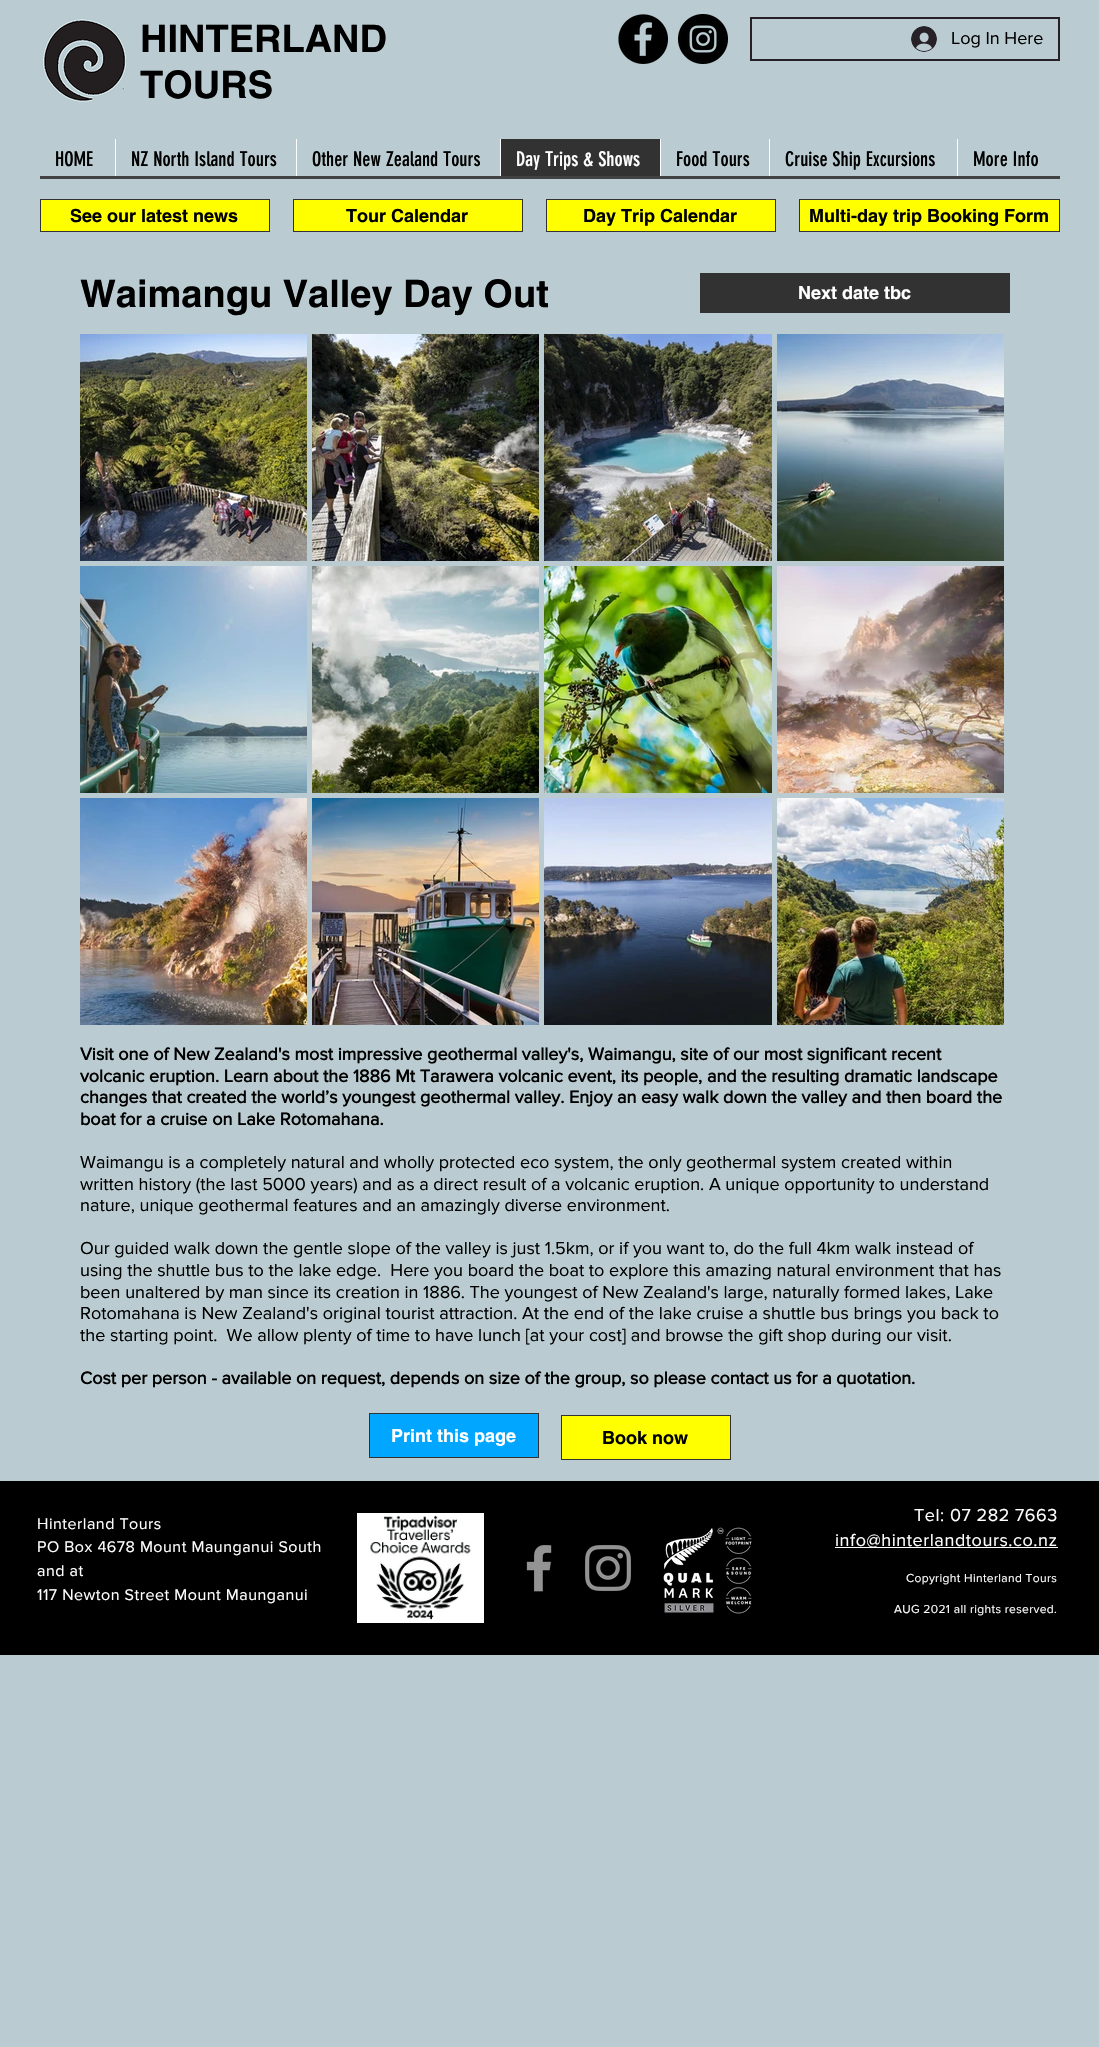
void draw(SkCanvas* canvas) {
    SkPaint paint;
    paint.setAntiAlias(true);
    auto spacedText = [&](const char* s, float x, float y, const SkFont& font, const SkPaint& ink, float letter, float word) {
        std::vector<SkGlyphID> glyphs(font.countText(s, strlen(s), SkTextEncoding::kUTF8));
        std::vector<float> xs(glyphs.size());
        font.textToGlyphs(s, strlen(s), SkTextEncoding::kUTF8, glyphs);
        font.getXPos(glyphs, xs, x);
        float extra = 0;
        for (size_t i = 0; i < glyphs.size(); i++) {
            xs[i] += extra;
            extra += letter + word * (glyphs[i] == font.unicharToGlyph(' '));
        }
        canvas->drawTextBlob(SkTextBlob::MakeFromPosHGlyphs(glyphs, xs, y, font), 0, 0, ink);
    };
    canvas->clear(0xFFBACCD1);
    canvas->drawImageRect(SkImages::DeferredFromEncodedData(SkData::MakeFromFileName("img1.png")), SkRect::MakeXYWH(42, 18, 84, 84), SkSamplingOptions());
    SkFont font1(fontMgr->matchFamilyStyle("helvetica", SkFontStyle::Bold()), 38);
    font1.setSubpixel(true);
    paint.setColor(0xFF000000);
    canvas->drawString("HINTERLAND", 140, 52, font1, paint);
    canvas->drawString("TOURS", 140, 98, font1, paint);
    canvas->drawImageRect(SkImages::DeferredFromEncodedData(SkData::MakeFromFileName("img2.png")), SkRect::MakeXYWH(618, 14, 50, 50), SkSamplingOptions());
    canvas->drawImageRect(SkImages::DeferredFromEncodedData(SkData::MakeFromFileName("img3.png")), SkRect::MakeXYWH(678, 14, 50, 50), SkSamplingOptions());
    paint.setStyle(SkPaint::kStroke_Style);
    paint.setStrokeWidth(2);
    paint.setColor(0xFF262027);
    canvas->drawRect(SkRect::MakeXYWH(751, 18, 308, 42), paint);
    canvas->drawImageRect(SkImages::DeferredFromEncodedData(SkData::MakeFromFileName("img4.png")), SkRect::MakeXYWH(911, 26, 26, 26), SkSamplingOptions());
    SkFont font2(fontMgr->matchFamilyStyle("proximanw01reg", SkFontStyle::Normal()), 18);
    font2.setSubpixel(true);
    paint.setStyle(SkPaint::kFill_Style);
    paint.setColor(0xFF000000);
    canvas->drawString("Log In Here", 951, 44, font2, paint);
    SkFont font3(fontMgr->matchFamilyStyle("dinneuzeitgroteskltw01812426", SkFontStyle::Normal()), 20);
    font3.setSubpixel(true);
    canvas->drawString("HOME", 55, 166, font3, paint);
    paint.setColor(0xFFFFFFFF);
    canvas->drawRect(SkRect::MakeXYWH(115, 139, 1, 40), paint);
    paint.setColor(0xFF000000);
    canvas->drawString("NZ North Island Tours", 131, 166, font3, paint);
    paint.setColor(0xFFFFFFFF);
    canvas->drawRect(SkRect::MakeXYWH(296, 139, 1, 40), paint);
    paint.setColor(0xFF000000);
    canvas->drawString("Other New Zealand Tours", 312, 166, font3, paint);
    paint.setColor(0xFF323232);
    canvas->drawRect(SkRect::MakeXYWH(501, 139, 159, 37), paint);
    paint.setColor(0xFFFFFFFF);
    canvas->drawRect(SkRect::MakeXYWH(500, 139, 1, 40), paint);
    canvas->drawString("Day Trips & Shows", 516, 166, font3, paint);
    canvas->drawRect(SkRect::MakeXYWH(660, 139, 1, 40), paint);
    paint.setColor(0xFF000000);
    canvas->drawString("Food Tours", 676, 166, font3, paint);
    paint.setColor(0xFFFFFFFF);
    canvas->drawRect(SkRect::MakeXYWH(769, 139, 1, 40), paint);
    paint.setColor(0xFF000000);
    canvas->drawString("Cruise Ship Excursions", 785, 166, font3, paint);
    paint.setColor(0xFFFFFFFF);
    canvas->drawRect(SkRect::MakeXYWH(957, 139, 1, 40), paint);
    paint.setColor(0xFF000000);
    canvas->drawString("More Info", 973, 166, font3, paint);
    paint.setColor(0xFF424242);
    canvas->drawRect(SkRect::MakeXYWH(40, 176, 1020, 3), paint);
    paint.setColor(0xFFFFFF00);
    canvas->drawRect(SkRect::MakeXYWH(40.5f, 199.5f, 229, 32), paint);
    paint.setStyle(SkPaint::kStroke_Style);
    paint.setStrokeWidth(1);
    paint.setColor(0xFF323232);
    canvas->drawRect(SkRect::MakeXYWH(40.5f, 199.5f, 229, 32), paint);
    SkFont font4(fontMgr->matchFamilyStyle("helvetica", SkFontStyle::Bold()), 18);
    font4.setSubpixel(true);
    paint.setStyle(SkPaint::kFill_Style);
    paint.setColor(0xFF000000);
    canvas->drawString("See our latest news", 70, 222, font4, paint);
    paint.setColor(0xFFFFFF00);
    canvas->drawRect(SkRect::MakeXYWH(293.5f, 199.5f, 229, 32), paint);
    paint.setStyle(SkPaint::kStroke_Style);
    paint.setColor(0xFF323232);
    canvas->drawRect(SkRect::MakeXYWH(293.5f, 199.5f, 229, 32), paint);
    paint.setStyle(SkPaint::kFill_Style);
    paint.setColor(0xFF000000);
    canvas->drawString("Tour Calendar", 346, 222, font4, paint);
    paint.setColor(0xFFFFFF00);
    canvas->drawRect(SkRect::MakeXYWH(546.5f, 199.5f, 229, 32), paint);
    paint.setStyle(SkPaint::kStroke_Style);
    paint.setColor(0xFF323232);
    canvas->drawRect(SkRect::MakeXYWH(546.5f, 199.5f, 229, 32), paint);
    paint.setStyle(SkPaint::kFill_Style);
    paint.setColor(0xFF000000);
    canvas->drawString("Day Trip Calendar", 583, 222, font4, paint);
    paint.setColor(0xFFFFFF00);
    canvas->drawRect(SkRect::MakeXYWH(799.5f, 199.5f, 260, 32), paint);
    paint.setStyle(SkPaint::kStroke_Style);
    paint.setColor(0xFF323232);
    canvas->drawRect(SkRect::MakeXYWH(799.5f, 199.5f, 260, 32), paint);
    paint.setStyle(SkPaint::kFill_Style);
    paint.setColor(0xFF000000);
    canvas->drawString("Multi-day trip Booking Form", 809, 222, font4, paint);
    canvas->drawString("Waimangu Valley Day Out", 80, 307, font1, paint);
    paint.setColor(0xFF323232);
    canvas->drawRect(SkRect::MakeXYWH(700, 273, 310, 40), paint);
    paint.setColor(0xFFFFFFFF);
    canvas->drawString("Next date tbc", 798, 299, font4, paint);
    canvas->drawImageRect(SkImages::DeferredFromEncodedData(SkData::MakeFromFileName("img5.png")), SkRect::MakeXYWH(80, 334, 227, 227), SkSamplingOptions());
    canvas->drawImageRect(SkImages::DeferredFromEncodedData(SkData::MakeFromFileName("img6.png")), SkRect::MakeXYWH(312, 334, 227, 227), SkSamplingOptions());
    canvas->drawImageRect(SkImages::DeferredFromEncodedData(SkData::MakeFromFileName("img7.png")), SkRect::MakeXYWH(544, 334, 228, 227), SkSamplingOptions());
    canvas->drawImageRect(SkImages::DeferredFromEncodedData(SkData::MakeFromFileName("img8.png")), SkRect::MakeXYWH(777, 334, 227, 227), SkSamplingOptions());
    canvas->drawImageRect(SkImages::DeferredFromEncodedData(SkData::MakeFromFileName("img9.png")), SkRect::MakeXYWH(80, 566, 227, 227), SkSamplingOptions());
    canvas->drawImageRect(SkImages::DeferredFromEncodedData(SkData::MakeFromFileName("img10.png")), SkRect::MakeXYWH(312, 566, 227, 227), SkSamplingOptions());
    canvas->drawImageRect(SkImages::DeferredFromEncodedData(SkData::MakeFromFileName("img11.png")), SkRect::MakeXYWH(544, 566, 228, 227), SkSamplingOptions());
    canvas->drawImageRect(SkImages::DeferredFromEncodedData(SkData::MakeFromFileName("img12.png")), SkRect::MakeXYWH(777, 566, 227, 227), SkSamplingOptions());
    canvas->drawImageRect(SkImages::DeferredFromEncodedData(SkData::MakeFromFileName("img13.png")), SkRect::MakeXYWH(80, 798, 227, 227), SkSamplingOptions());
    canvas->drawImageRect(SkImages::DeferredFromEncodedData(SkData::MakeFromFileName("img14.png")), SkRect::MakeXYWH(312, 798, 227, 227), SkSamplingOptions());
    canvas->drawImageRect(SkImages::DeferredFromEncodedData(SkData::MakeFromFileName("img15.png")), SkRect::MakeXYWH(544, 798, 228, 227), SkSamplingOptions());
    canvas->drawImageRect(SkImages::DeferredFromEncodedData(SkData::MakeFromFileName("img16.png")), SkRect::MakeXYWH(777, 798, 227, 227), SkSamplingOptions());
    SkFont font5(fontMgr->matchFamilyStyle("proximanw01reg", SkFontStyle::Bold()), 18);
    font5.setSubpixel(true);
    paint.setColor(0xFF000000);
    canvas->drawString("Visit one of New Zealand's most impressive geothermal valley's, Waimangu, site of our most significant recent", 80, 1060, font5, paint);
    canvas->drawString("volcanic eruption. Learn about the 1886 Mt Tarawera volcanic event, its people, and the resulting dramatic landscape", 80, 1082, font5, paint);
    canvas->drawString("changes that created the world’s youngest geothermal valley. Enjoy an easy walk down the valley and then board the", 80, 1103, font5, paint);
    canvas->drawString("boat for a cruise on Lake Rotomahana.", 80, 1125, font5, paint);
    canvas->drawString("Waimangu is a completely natural and wholly protected eco system, the only geothermal system created within", 80, 1168, font2, paint);
    canvas->drawString("written history (the last 5000 years) and as a direct result of a volcanic eruption. A unique opportunity to understand", 80, 1190, font2, paint);
    canvas->drawString("nature, unique geothermal features and an amazingly diverse environment.", 80, 1211, font2, paint);
    canvas->drawString("Our guided walk down the gentle slope of the valley is just 1.5km, or if you want to, do the full 4km walk instead of", 80, 1254, font2, paint);
    canvas->drawString("using the shuttle bus to the lake edge.  Here you board the boat to explore this amazing natural environment that has", 80, 1276, font2, paint);
    canvas->drawString("been unaltered by man since its creation in 1886. The youngest of New Zealand's large, naturally formed lakes, Lake", 80, 1298, font2, paint);
    canvas->drawString("Rotomahana is New Zealand's original tourist attraction. At the end of the lake cruise a shuttle bus brings you back to", 80, 1319, font2, paint);
    canvas->drawString("the starting point.  We allow plenty of time to have lunch [at your cost] and browse the gift shop during our visit.", 80, 1341, font2, paint);
    canvas->drawString("Cost per person - available on request, depends on size of the group, so please contact us for a quotation.", 80, 1384, font5, paint);
    paint.setColor(0xFF00A6FF);
    canvas->drawRect(SkRect::MakeXYWH(369.5f, 1413.5f, 169, 44), paint);
    paint.setStyle(SkPaint::kStroke_Style);
    paint.setColor(0xFF323232);
    canvas->drawRect(SkRect::MakeXYWH(369.5f, 1413.5f, 169, 44), paint);
    paint.setStyle(SkPaint::kFill_Style);
    paint.setColor(0xFFFFFFFF);
    canvas->drawString("Print this page", 391, 1442, font4, paint);
    paint.setColor(0xFFFFFF00);
    canvas->drawRect(SkRect::MakeXYWH(561.5f, 1415.5f, 169, 44), paint);
    paint.setStyle(SkPaint::kStroke_Style);
    paint.setColor(0xFF323232);
    canvas->drawRect(SkRect::MakeXYWH(561.5f, 1415.5f, 169, 44), paint);
    paint.setStyle(SkPaint::kFill_Style);
    paint.setColor(0xFF000000);
    canvas->drawString("Book now", 602, 1444, font4, paint);
    canvas->drawRect(SkRect::MakeXYWH(0, 1481, 1099, 174), paint);
    SkFont font6(fontMgr->matchFamilyStyle("proximanw01reg", SkFontStyle::Normal()), 16);
    font6.setSubpixel(true);
    paint.setColor(0xFFFFFFFF);
    spacedText("Hinterland Tours", 37, 1529, font6, paint, 0.5f, 0);
    spacedText("PO Box 4678 Mount Maunganui South", 37, 1552, font6, paint, 0.5f, 0);
    spacedText("and at", 37, 1576, font6, paint, 0.5f, 0);
    spacedText("117 Newton Street Mount Maunganui", 37, 1600, font6, paint, 0.5f, 0);
    canvas->drawImageRect(SkImages::DeferredFromEncodedData(SkData::MakeFromFileName("img17.png")), SkRect::MakeXYWH(357, 1513, 127, 110), SkSamplingOptions());
    canvas->drawImageRect(SkImages::DeferredFromEncodedData(SkData::MakeFromFileName("img18.png")), SkRect::MakeXYWH(526, 1544, 26, 48), SkSamplingOptions());
    canvas->drawImageRect(SkImages::DeferredFromEncodedData(SkData::MakeFromFileName("img19.png")), SkRect::MakeXYWH(584, 1544, 48, 48), SkSamplingOptions());
    canvas->drawImageRect(SkImages::DeferredFromEncodedData(SkData::MakeFromFileName("img20.png")), SkRect::MakeXYWH(663, 1527, 89, 87), SkSamplingOptions());
    spacedText("Tel: 07 282 7663", 914, 1521, font2, paint, 0.55f, 0);
    canvas->drawRect(SkRect::MakeXYWH(835, 1547, 223, 1), paint);
    spacedText("info@hinterlandtours.co.nz", 835, 1546, font2, paint, 0.55f, 0);
    SkFont font7(fontMgr->matchFamilyStyle("proximanw01reg", SkFontStyle::Normal()), 12);
    font7.setSubpixel(true);
    spacedText("Copyright Hinterland Tours", 906, 1582, font7, paint, 0.35f, 0);
    spacedText("AUG 2021 all rights reserved.", 894, 1613, font7, paint, 0.35f, 0);
}
